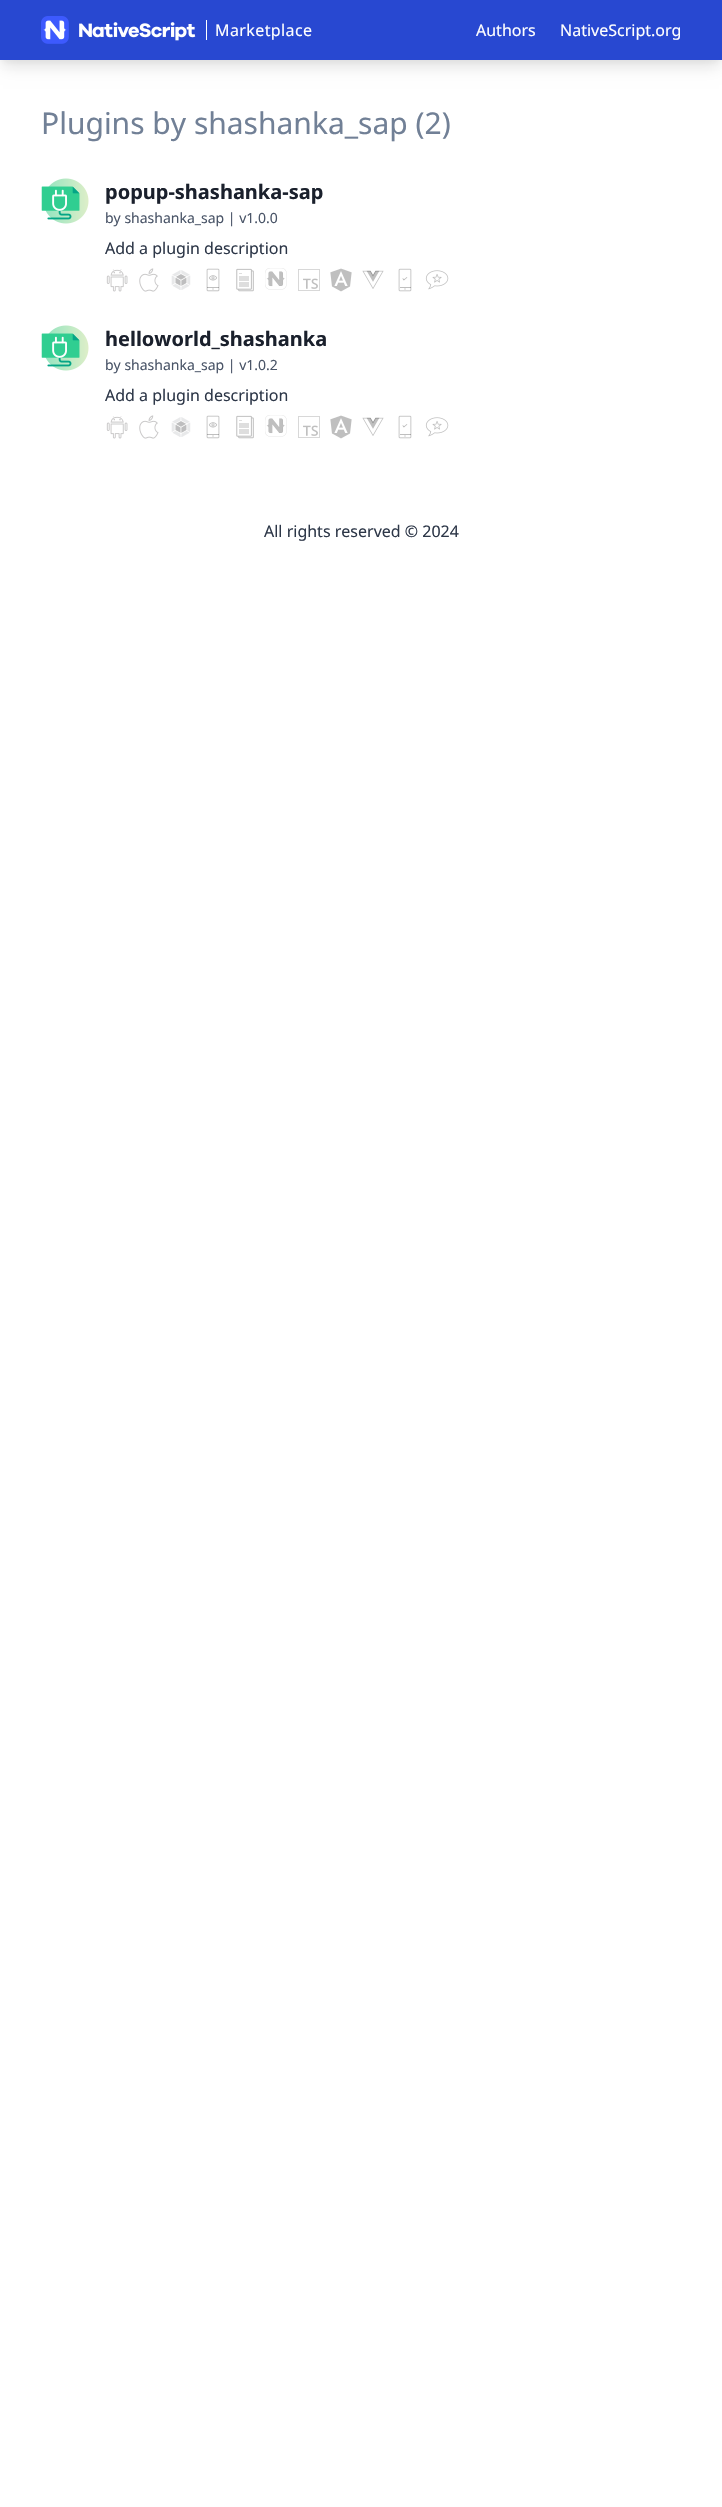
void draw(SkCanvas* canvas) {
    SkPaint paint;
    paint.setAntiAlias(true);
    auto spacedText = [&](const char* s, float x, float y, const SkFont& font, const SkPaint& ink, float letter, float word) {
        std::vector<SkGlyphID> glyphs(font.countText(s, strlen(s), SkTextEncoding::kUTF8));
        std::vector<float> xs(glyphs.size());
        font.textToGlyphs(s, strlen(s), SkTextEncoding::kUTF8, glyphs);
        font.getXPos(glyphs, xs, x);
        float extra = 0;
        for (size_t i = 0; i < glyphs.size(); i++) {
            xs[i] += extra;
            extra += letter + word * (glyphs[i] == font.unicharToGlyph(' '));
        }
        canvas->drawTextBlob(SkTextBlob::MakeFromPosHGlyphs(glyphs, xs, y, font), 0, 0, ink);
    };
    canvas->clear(0xFFFFFFFF);
    paint.setColor(0x0D000000);
    paint.setMaskFilter(SkMaskFilter::MakeBlur(kNormal_SkBlurStyle, 3));
    canvas->drawRect(SkRect::MakeXYWH(2, 6, 718, 56), paint);
    paint.setMaskFilter(nullptr);
    paint.setColor(0x1A000000);
    paint.setMaskFilter(SkMaskFilter::MakeBlur(kNormal_SkBlurStyle, 7.5f));
    canvas->drawRect(SkRect::MakeXYWH(3, 13, 716, 54), paint);
    paint.setMaskFilter(nullptr);
    paint.setColor(0xFF2848D1);
    canvas->drawRect(SkRect::MakeXYWH(0, 0, 722, 60), paint);
    canvas->drawImageRect(SkImages::DeferredFromEncodedData(SkData::MakeFromFileName("img1.png")), SkRect::MakeXYWH(41, 16, 28, 28), SkSamplingOptions());
    canvas->drawImageRect(SkImages::DeferredFromEncodedData(SkData::MakeFromFileName("img2.png")), SkRect::MakeXYWH(79, 22, 117, 19), SkSamplingOptions());
    paint.setColor(0xFFFFFFFF);
    canvas->drawRect(SkRect::MakeXYWH(206, 20, 1, 20), paint);
    SkFont font1(fontMgr->matchFamilyStyle("Noto Sans", SkFontStyle::Normal()), 16);
    font1.setSubpixel(true);
    spacedText("Marketplace", 215, 36, font1, paint, 0.4f, 0);
    canvas->drawString("Authors", 476, 36, font1, paint);
    canvas->drawString("NativeScript.org", 560, 36, font1, paint);
    SkFont font2(fontMgr->matchFamilyStyle("Noto Sans", SkFontStyle::Normal()), 30);
    font2.setSubpixel(true);
    paint.setColor(0xFF718096);
    canvas->drawString("Plugins by shashanka_sap (2)", 41, 134, font2, paint);
    canvas->drawImageRect(SkImages::DeferredFromEncodedData(SkData::MakeFromFileName("img3.png")), SkRect::MakeXYWH(41, 178, 48, 46), SkSamplingOptions());
    SkFont font3(fontMgr->matchFamilyStyle("Noto Sans", SkFontStyle::Bold()), 20);
    font3.setSubpixel(true);
    paint.setColor(0xFF1A202C);
    canvas->drawString("popup-shashanka-sap", 105, 199, font3, paint);
    SkFont font4(fontMgr->matchFamilyStyle("Noto Sans", SkFontStyle::Normal()), 14);
    font4.setSubpixel(true);
    paint.setColor(0xFF4A5568);
    canvas->drawString("by shashanka_sap | v1.0.0", 105, 223, font4, paint);
    paint.setColor(0xFF2D3748);
    canvas->drawString("Add a plugin description", 105, 254, font1, paint);
    canvas->drawImageRect(SkImages::DeferredFromEncodedData(SkData::MakeFromFileName("img4.png")), SkRect::MakeXYWH(106, 269, 22, 23), SkSamplingOptions());
    canvas->drawImageRect(SkImages::DeferredFromEncodedData(SkData::MakeFromFileName("img5.png")), SkRect::MakeXYWH(139, 268, 20, 24), SkSamplingOptions());
    canvas->drawImageRect(SkImages::DeferredFromEncodedData(SkData::MakeFromFileName("img6.png")), SkRect::MakeXYWH(171, 270, 20, 20), SkSamplingOptions());
    canvas->drawImageRect(SkImages::DeferredFromEncodedData(SkData::MakeFromFileName("img7.png")), SkRect::MakeXYWH(206, 268, 14, 24), SkSamplingOptions());
    canvas->drawImageRect(SkImages::DeferredFromEncodedData(SkData::MakeFromFileName("img8.png")), SkRect::MakeXYWH(236, 268, 18, 24), SkSamplingOptions());
    canvas->drawImageRect(SkImages::DeferredFromEncodedData(SkData::MakeFromFileName("img9.png")), SkRect::MakeXYWH(265, 268, 22, 22), SkSamplingOptions());
    canvas->drawImageRect(SkImages::DeferredFromEncodedData(SkData::MakeFromFileName("img10.png")), SkRect::MakeXYWH(298, 269, 22, 22), SkSamplingOptions());
    canvas->drawImageRect(SkImages::DeferredFromEncodedData(SkData::MakeFromFileName("img11.png")), SkRect::MakeXYWH(330, 268, 22, 24), SkSamplingOptions());
    canvas->drawImageRect(SkImages::DeferredFromEncodedData(SkData::MakeFromFileName("img12.png")), SkRect::MakeXYWH(362, 270, 22, 19), SkSamplingOptions());
    canvas->drawImageRect(SkImages::DeferredFromEncodedData(SkData::MakeFromFileName("img13.png")), SkRect::MakeXYWH(398, 268, 14, 24), SkSamplingOptions());
    canvas->drawImageRect(SkImages::DeferredFromEncodedData(SkData::MakeFromFileName("img14.png")), SkRect::MakeXYWH(425, 270, 24, 20), SkSamplingOptions());
    canvas->drawImageRect(SkImages::DeferredFromEncodedData(SkData::MakeFromFileName("img3.png")), SkRect::MakeXYWH(41, 325, 48, 46), SkSamplingOptions());
    paint.setColor(0xFF1A202C);
    canvas->drawString("helloworld_shashanka", 105, 346, font3, paint);
    paint.setColor(0xFF4A5568);
    canvas->drawString("by shashanka_sap | v1.0.2", 105, 370, font4, paint);
    paint.setColor(0xFF2D3748);
    canvas->drawString("Add a plugin description", 105, 401, font1, paint);
    canvas->drawImageRect(SkImages::DeferredFromEncodedData(SkData::MakeFromFileName("img4.png")), SkRect::MakeXYWH(106, 416, 22, 23), SkSamplingOptions());
    canvas->drawImageRect(SkImages::DeferredFromEncodedData(SkData::MakeFromFileName("img5.png")), SkRect::MakeXYWH(139, 415, 20, 24), SkSamplingOptions());
    canvas->drawImageRect(SkImages::DeferredFromEncodedData(SkData::MakeFromFileName("img6.png")), SkRect::MakeXYWH(171, 417, 20, 20), SkSamplingOptions());
    canvas->drawImageRect(SkImages::DeferredFromEncodedData(SkData::MakeFromFileName("img7.png")), SkRect::MakeXYWH(206, 415, 14, 24), SkSamplingOptions());
    canvas->drawImageRect(SkImages::DeferredFromEncodedData(SkData::MakeFromFileName("img8.png")), SkRect::MakeXYWH(236, 415, 18, 24), SkSamplingOptions());
    canvas->drawImageRect(SkImages::DeferredFromEncodedData(SkData::MakeFromFileName("img9.png")), SkRect::MakeXYWH(265, 415, 22, 22), SkSamplingOptions());
    canvas->drawImageRect(SkImages::DeferredFromEncodedData(SkData::MakeFromFileName("img10.png")), SkRect::MakeXYWH(298, 416, 22, 22), SkSamplingOptions());
    canvas->drawImageRect(SkImages::DeferredFromEncodedData(SkData::MakeFromFileName("img11.png")), SkRect::MakeXYWH(330, 415, 22, 24), SkSamplingOptions());
    canvas->drawImageRect(SkImages::DeferredFromEncodedData(SkData::MakeFromFileName("img12.png")), SkRect::MakeXYWH(362, 417, 22, 19), SkSamplingOptions());
    canvas->drawImageRect(SkImages::DeferredFromEncodedData(SkData::MakeFromFileName("img13.png")), SkRect::MakeXYWH(398, 415, 14, 24), SkSamplingOptions());
    canvas->drawImageRect(SkImages::DeferredFromEncodedData(SkData::MakeFromFileName("img14.png")), SkRect::MakeXYWH(425, 417, 24, 20), SkSamplingOptions());
    canvas->drawString("All rights reserved © 2024", 264, 537, font1, paint);
}
